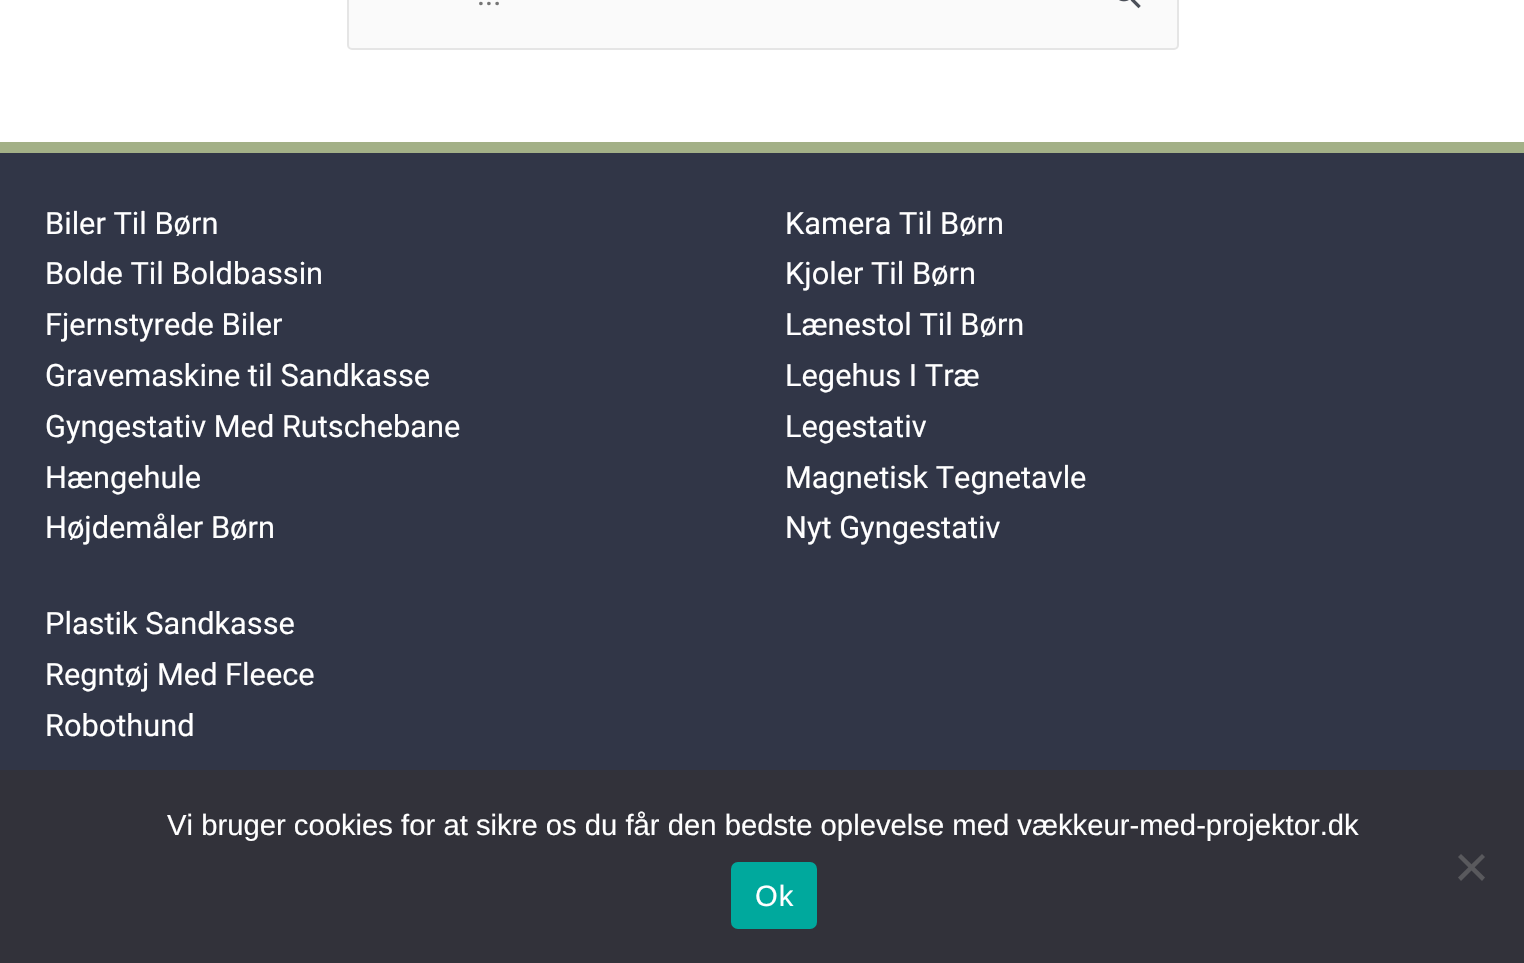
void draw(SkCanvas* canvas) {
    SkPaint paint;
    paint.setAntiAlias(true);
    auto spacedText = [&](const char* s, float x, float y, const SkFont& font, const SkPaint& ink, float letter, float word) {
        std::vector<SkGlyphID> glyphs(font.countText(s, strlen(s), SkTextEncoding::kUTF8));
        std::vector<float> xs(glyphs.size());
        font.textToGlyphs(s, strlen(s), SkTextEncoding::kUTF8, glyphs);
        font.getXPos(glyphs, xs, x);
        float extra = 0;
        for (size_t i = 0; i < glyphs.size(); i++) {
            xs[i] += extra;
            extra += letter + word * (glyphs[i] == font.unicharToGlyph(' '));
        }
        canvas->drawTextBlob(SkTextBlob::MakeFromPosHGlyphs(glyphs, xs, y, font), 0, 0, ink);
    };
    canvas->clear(0xFFFFFFFF);
    paint.setColor(0xFFFAFAFA);
    canvas->drawRoundRect(SkRect::MakeXYWH(348, -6, 830, 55), 4, 4, paint);
    paint.setStyle(SkPaint::kStroke_Style);
    paint.setStrokeWidth(2);
    paint.setColor(0xFFE5E5E5);
    canvas->drawRoundRect(SkRect::MakeXYWH(348, -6, 830, 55), 4, 4, paint);
    SkFont font1(fontMgr->matchFamilyStyle("Roboto", SkFontStyle::Normal()), 30.75f);
    font1.setSubpixel(true);
    paint.setStyle(SkPaint::kFill_Style);
    paint.setColor(0xFF757575);
    canvas->drawString("...", 477, 5, font1, paint);
    canvas->drawImageRect(SkImages::DeferredFromEncodedData(SkData::MakeFromFileName("img1.png")), SkRect::MakeXYWH(1119, 0, 22, 9), SkSamplingOptions());
    paint.setColor(0xFF313647);
    canvas->drawRect(SkRect::MakeXYWH(0, 153, 1524, 617), paint);
    paint.setColor(0xFFA3B087);
    canvas->drawRect(SkRect::MakeXYWH(0, 142, 1524, 11), paint);
    paint.setColor(0xFFFFFFFF);
    canvas->drawString("Biler Til Børn", 45, 234, font1, paint);
    canvas->drawString("Bolde Til Boldbassin", 45, 284, font1, paint);
    canvas->drawString("Fjernstyrede Biler", 45, 335, font1, paint);
    canvas->drawString("Gravemaskine til Sandkasse", 45, 386, font1, paint);
    canvas->drawString("Gyngestativ Med Rutschebane", 45, 437, font1, paint);
    canvas->drawString("Hængehule", 45, 488, font1, paint);
    canvas->drawString("Højdemåler Børn", 45, 538, font1, paint);
    canvas->drawString("Kamera Til Børn", 785, 234, font1, paint);
    canvas->drawString("Kjoler Til Børn", 785, 284, font1, paint);
    canvas->drawString("Lænestol Til Børn", 785, 335, font1, paint);
    canvas->drawString("Legehus I Træ", 785, 386, font1, paint);
    canvas->drawString("Legestativ", 785, 437, font1, paint);
    canvas->drawString("Magnetisk Tegnetavle", 785, 488, font1, paint);
    canvas->drawString("Nyt Gyngestativ", 785, 538, font1, paint);
    canvas->drawString("Plastik Sandkasse", 45, 634, font1, paint);
    canvas->drawString("Regntøj Med Fleece", 45, 685, font1, paint);
    canvas->drawString("Robothund", 45, 736, font1, paint);
    paint.setColor(0xFF32323A);
    canvas->drawRect(SkRect::MakeXYWH(0, 770, 1524, 193), paint);
    SkFont font2(fontMgr->matchFamilyStyle("Liberation Sans", SkFontStyle::Normal()), 29.25f);
    font2.setSubpixel(true);
    paint.setColor(0xFFFFFFFF);
    canvas->drawString("Vi bruger cookies for at sikre os du får den bedste oplevelse med vækkeur-med-projektor.dk", 167, 835, font2, paint);
    paint.setColor(0xFF59595D);
    canvas->drawPath(SkPathBuilder().moveTo(1482, 854).lineTo(1485, 857).lineTo(1461, 881).lineTo(1458, 877.5f).close().detach(), paint);
    canvas->drawPath(SkPathBuilder().moveTo(1458, 857).lineTo(1461, 854).lineTo(1485, 877.5f).lineTo(1482, 881).close().detach(), paint);
    paint.setColor(0xFF00A99D);
    canvas->drawRoundRect(SkRect::MakeXYWH(731, 862, 86, 67), 7, 7, paint);
    paint.setColor(0xFFFFFFFF);
    spacedText("Ok", 755, 906, font2, paint, 1, 0);
}
